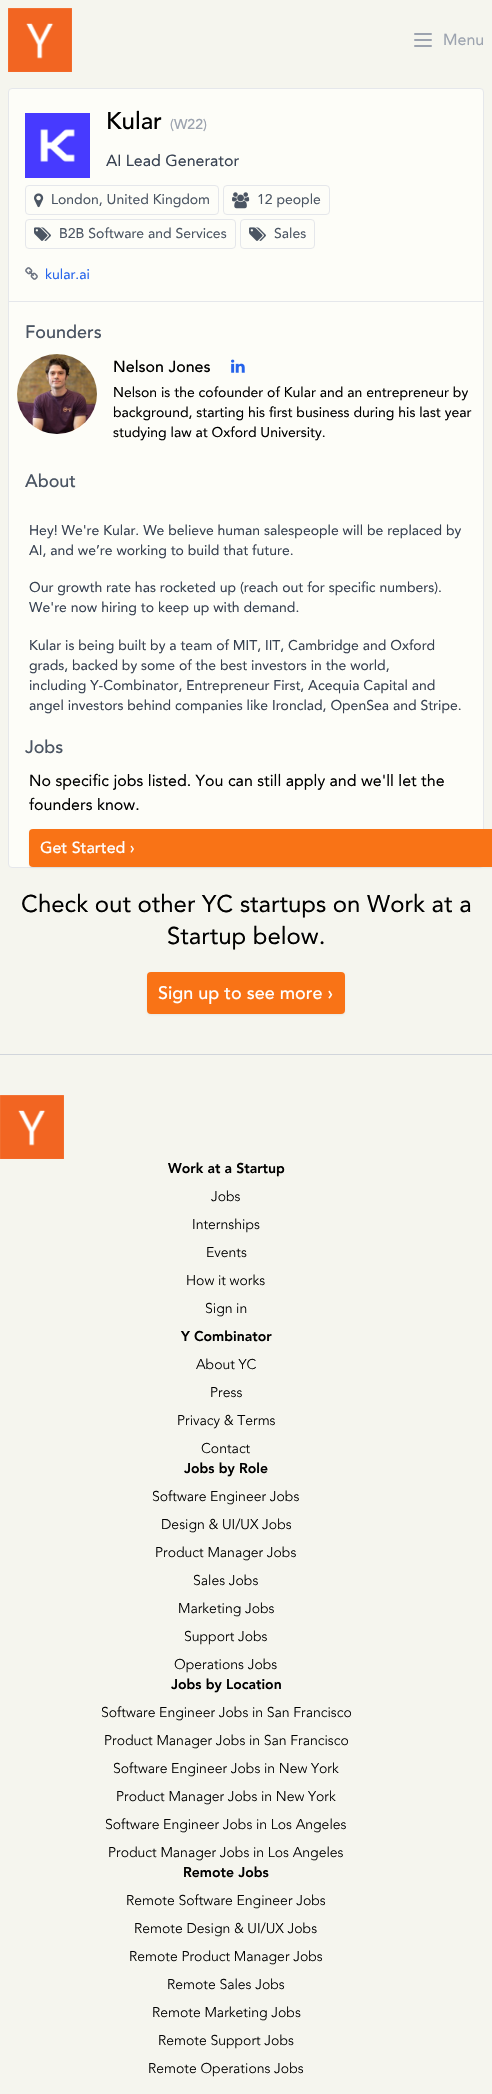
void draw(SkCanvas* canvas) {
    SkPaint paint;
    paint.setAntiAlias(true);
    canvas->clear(0xFFF5F5EE);
    canvas->drawImageRect(SkImages::DeferredFromEncodedData(SkData::MakeFromFileName("img1.png")), SkRect::MakeXYWH(8, 8, 64, 64), SkSamplingOptions());
    paint.setStyle(SkPaint::kStroke_Style);
    paint.setStrokeWidth(2);
    paint.setStrokeCap(SkPaint::kRound_Cap);
    paint.setStrokeJoin(SkPaint::kRound_Join);
    paint.setColor(0xFF9CA3AF);
    canvas->drawPath(SkPathBuilder().moveTo(415, 34).lineTo(431, 34).moveTo(415, 40).lineTo(431, 40).moveTo(415, 46).lineTo(431, 46).detach(), paint);
    SkFont font1(fontMgr->matchFamilyStyle("Avenir", SkFontStyle::Normal()), 16);
    font1.setSubpixel(true);
    paint.setStyle(SkPaint::kFill_Style);
    canvas->drawString("Menu", 443, 45, font1, paint);
    paint.setColor(0xFFFDFDF8);
    canvas->drawRoundRect(SkRect::MakeXYWH(8.5f, 88.5f, 475, 779), 3.5f, 3.5f, paint);
    paint.setStyle(SkPaint::kStroke_Style);
    paint.setStrokeWidth(1);
    paint.setStrokeCap(SkPaint::kButt_Cap);
    paint.setStrokeJoin(SkPaint::kMiter_Join);
    paint.setColor(0xFFE5E7EB);
    canvas->drawRoundRect(SkRect::MakeXYWH(8.5f, 88.5f, 475, 779), 3.5f, 3.5f, paint);
    canvas->drawImageRect(SkImages::DeferredFromEncodedData(SkData::MakeFromFileName("img2.png")), SkRect::MakeXYWH(25, 113, 65, 65), SkSamplingOptions());
    SkFont font2(fontMgr->matchFamilyStyle("Avenir", SkFontStyle(500, SkFontStyle::kNormal_Width, SkFontStyle::kUpright_Slant)), 24);
    font2.setSubpixel(true);
    paint.setStyle(SkPaint::kFill_Style);
    paint.setColor(0xFF000000);
    canvas->drawString("Kular", 106, 129, font2, paint);
    SkFont font3(fontMgr->matchFamilyStyle("Avenir", SkFontStyle(500, SkFontStyle::kNormal_Width, SkFontStyle::kUpright_Slant)), 14);
    font3.setSubpixel(true);
    paint.setColor(0xFF9CA3AF);
    canvas->drawString("(W22)", 170, 129, font3, paint);
    paint.setColor(0xFF374151);
    canvas->drawString("AI Lead Generator", 106, 166, font1, paint);
    paint.setStyle(SkPaint::kStroke_Style);
    paint.setColor(0xFFE5E7EB);
    canvas->drawRoundRect(SkRect::MakeXYWH(25.5f, 185.5f, 193, 29), 3.5f, 3.5f, paint);
    canvas->drawImageRect(SkImages::DeferredFromEncodedData(SkData::MakeFromFileName("img3.png")), SkRect::MakeXYWH(34, 193, 10, 15), SkSamplingOptions());
    SkFont font4(fontMgr->matchFamilyStyle("Avenir", SkFontStyle::Normal()), 14);
    font4.setSubpixel(true);
    paint.setStyle(SkPaint::kFill_Style);
    paint.setColor(0xFF4B5563);
    canvas->drawString("London, United Kingdom", 51, 204, font4, paint);
    paint.setStyle(SkPaint::kStroke_Style);
    paint.setColor(0xFFE5E7EB);
    canvas->drawRoundRect(SkRect::MakeXYWH(223.5f, 185.5f, 106, 29), 3.5f, 3.5f, paint);
    canvas->drawImageRect(SkImages::DeferredFromEncodedData(SkData::MakeFromFileName("img4.png")), SkRect::MakeXYWH(232, 192, 18, 17), SkSamplingOptions());
    paint.setStyle(SkPaint::kFill_Style);
    paint.setColor(0xFF4B5563);
    canvas->drawString("12 people", 257, 204, font4, paint);
    paint.setStyle(SkPaint::kStroke_Style);
    paint.setColor(0xFFE5E7EB);
    canvas->drawRoundRect(SkRect::MakeXYWH(25.5f, 219.5f, 210, 29), 3.5f, 3.5f, paint);
    canvas->drawImageRect(SkImages::DeferredFromEncodedData(SkData::MakeFromFileName("img5.png")), SkRect::MakeXYWH(34, 227, 17, 14), SkSamplingOptions());
    paint.setStyle(SkPaint::kFill_Style);
    paint.setColor(0xFF4B5563);
    canvas->drawString("B2B Software and Services", 59, 238, font4, paint);
    paint.setStyle(SkPaint::kStroke_Style);
    paint.setColor(0xFFE5E7EB);
    canvas->drawRoundRect(SkRect::MakeXYWH(240.5f, 219.5f, 74, 29), 3.5f, 3.5f, paint);
    canvas->drawImageRect(SkImages::DeferredFromEncodedData(SkData::MakeFromFileName("img5.png")), SkRect::MakeXYWH(249, 227, 17, 14), SkSamplingOptions());
    paint.setStyle(SkPaint::kFill_Style);
    paint.setColor(0xFF4B5563);
    canvas->drawString("Sales", 274, 238, font4, paint);
    canvas->drawImageRect(SkImages::DeferredFromEncodedData(SkData::MakeFromFileName("img6.png")), SkRect::MakeXYWH(25, 267, 13, 13), SkSamplingOptions());
    paint.setColor(0xFF2563EB);
    canvas->drawString("kular.ai", 45, 279, font4, paint);
    paint.setColor(0xFFE5E7EB);
    canvas->drawRect(SkRect::MakeXYWH(9, 301, 474, 1), paint);
    SkFont font5(fontMgr->matchFamilyStyle("Avenir", SkFontStyle(500, SkFontStyle::kNormal_Width, SkFontStyle::kUpright_Slant)), 18);
    font5.setSubpixel(true);
    paint.setColor(0xFF4B5563);
    canvas->drawString("Founders", 25, 338, font5, paint);
    canvas->drawImageRect(SkImages::DeferredFromEncodedData(SkData::MakeFromFileName("img7.png")), SkRect::MakeXYWH(17, 354, 80, 80), SkSamplingOptions());
    SkFont font6(fontMgr->matchFamilyStyle("Avenir", SkFontStyle(500, SkFontStyle::kNormal_Width, SkFontStyle::kUpright_Slant)), 16);
    font6.setSubpixel(true);
    paint.setColor(0xFF000000);
    canvas->drawString("Nelson Jones", 113, 372, font6, paint);
    canvas->drawImageRect(SkImages::DeferredFromEncodedData(SkData::MakeFromFileName("img8.png")), SkRect::MakeXYWH(231, 359, 14, 14), SkSamplingOptions());
    canvas->drawString("Nelson is the cofounder of Kular and an entrepreneur by", 113, 397, font4, paint);
    canvas->drawString("background, starting his first business during his last year", 113, 417, font4, paint);
    canvas->drawString("studying law at Oxford University.", 113, 437, font4, paint);
    paint.setColor(0xFF4B5563);
    canvas->drawString("About", 25, 487, font5, paint);
    paint.setColor(0xFF374151);
    canvas->drawString("Hey! We're Kular. We believe human salespeople will be replaced by", 29, 535, font4, paint);
    canvas->drawString("AI, and we’re working to build that future.", 29, 555, font4, paint);
    canvas->drawString("Our growth rate has rocketed up (reach out for specific numbers).", 29, 592, font4, paint);
    canvas->drawString("We're now hiring to keep up with demand.", 29, 612, font4, paint);
    canvas->drawString("Kular is being built by a team of MIT, IIT, Cambridge and Oxford", 29, 650, font4, paint);
    canvas->drawString("grads, backed by some of the best investors in the world,", 29, 670, font4, paint);
    canvas->drawString("including Y-Combinator, Entrepreneur First, Acequia Capital and", 29, 690, font4, paint);
    canvas->drawString("angel investors behind companies like Ironclad, OpenSea and Stripe.", 29, 710, font4, paint);
    paint.setColor(0xFF4B5563);
    canvas->drawString("Jobs", 25, 753, font5, paint);
    paint.setColor(0xFF000000);
    canvas->drawString("No specific jobs listed. You can still apply and we'll let the", 29, 786, font1, paint);
    canvas->drawString("founders know.", 29, 810, font1, paint);
    paint.setColor(0x0D000000);
    paint.setMaskFilter(SkMaskFilter::MakeBlur(kNormal_SkBlurStyle, 1));
    canvas->drawRoundRect(SkRect::MakeXYWH(29, 830, 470, 38), 4, 4, paint);
    paint.setMaskFilter(nullptr);
    paint.setColor(0xFFF97316);
    canvas->drawRoundRect(SkRect::MakeXYWH(29, 829, 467, 38), 4, 4, paint);
    paint.setColor(0xFFFFFFFF);
    canvas->drawString("Get Started ›", 40, 853, font6, paint);
    SkFont font7(fontMgr->matchFamilyStyle("Avenir", SkFontStyle::Normal()), 24);
    font7.setSubpixel(true);
    paint.setColor(0xFF000000);
    canvas->drawString("Check out other YC startups on Work at a", 21, 912, font7, paint);
    canvas->drawString("Startup below.", 167, 944, font7, paint);
    paint.setColor(0x0D000000);
    paint.setMaskFilter(SkMaskFilter::MakeBlur(kNormal_SkBlurStyle, 1));
    canvas->drawRoundRect(SkRect::MakeXYWH(147, 973, 198, 42), 4, 4, paint);
    paint.setMaskFilter(nullptr);
    paint.setColor(0xFFF97316);
    canvas->drawRoundRect(SkRect::MakeXYWH(147, 972, 198, 42), 4, 4, paint);
    paint.setColor(0xFFFFFFFF);
    canvas->drawString("Sign up to see more ›", 158, 999, font5, paint);
    paint.setColor(0xFFD1D5DB);
    canvas->drawRect(SkRect::MakeXYWH(0, 1054, 492, 1), paint);
    canvas->drawImageRect(SkImages::DeferredFromEncodedData(SkData::MakeFromFileName("img1.png")), SkRect::MakeXYWH(0, 1095, 64, 64), SkSamplingOptions());
    SkFont font8(fontMgr->matchFamilyStyle("Avenir", SkFontStyle(900, SkFontStyle::kNormal_Width, SkFontStyle::kUpright_Slant)), 14);
    font8.setSubpixel(true);
    paint.setColor(0xFF000000);
    canvas->drawString("Work at a Startup", 168, 1173, font8, paint);
    SkFont font9(fontMgr->matchFamilyStyle("Avenir", SkFontStyle(300, SkFontStyle::kNormal_Width, SkFontStyle::kUpright_Slant)), 14);
    font9.setSubpixel(true);
    canvas->drawString("Jobs", 211, 1201, font9, paint);
    canvas->drawString("Internships", 192, 1229, font9, paint);
    canvas->drawString("Events", 206, 1257, font9, paint);
    canvas->drawString("How it works", 186, 1285, font9, paint);
    canvas->drawString("Sign in", 205, 1313, font9, paint);
    canvas->drawString("Y Combinator", 181, 1341, font8, paint);
    canvas->drawString("About YC", 196, 1369, font9, paint);
    canvas->drawString("Press", 210, 1397, font9, paint);
    canvas->drawString("Privacy & Terms", 177, 1425, font9, paint);
    canvas->drawString("Contact", 201, 1453, font9, paint);
    canvas->drawString("Jobs by Role", 184, 1473, font8, paint);
    canvas->drawString("Software Engineer Jobs", 152, 1501, font9, paint);
    canvas->drawString("Design & UI/UX Jobs", 161, 1529, font9, paint);
    canvas->drawString("Product Manager Jobs", 155, 1557, font9, paint);
    canvas->drawString("Sales Jobs", 193, 1585, font9, paint);
    canvas->drawString("Marketing Jobs", 178, 1613, font9, paint);
    canvas->drawString("Support Jobs", 184, 1641, font9, paint);
    canvas->drawString("Operations Jobs", 174, 1669, font9, paint);
    canvas->drawString("Jobs by Location", 171, 1689, font8, paint);
    canvas->drawString("Software Engineer Jobs in San Francisco", 101, 1717, font9, paint);
    canvas->drawString("Product Manager Jobs in San Francisco", 104, 1745, font9, paint);
    canvas->drawString("Software Engineer Jobs in New York", 113, 1773, font9, paint);
    canvas->drawString("Product Manager Jobs in New York", 116, 1801, font9, paint);
    canvas->drawString("Software Engineer Jobs in Los Angeles", 105, 1829, font9, paint);
    canvas->drawString("Product Manager Jobs in Los Angeles", 108, 1857, font9, paint);
    canvas->drawString("Remote Jobs", 183, 1877, font8, paint);
    canvas->drawString("Remote Software Engineer Jobs", 126, 1905, font9, paint);
    canvas->drawString("Remote Design & UI/UX Jobs", 134, 1933, font9, paint);
    canvas->drawString("Remote Product Manager Jobs", 129, 1961, font9, paint);
    canvas->drawString("Remote Sales Jobs", 167, 1989, font9, paint);
    canvas->drawString("Remote Marketing Jobs", 152, 2017, font9, paint);
    canvas->drawString("Remote Support Jobs", 158, 2045, font9, paint);
    canvas->drawString("Remote Operations Jobs", 148, 2073, font9, paint);
}
